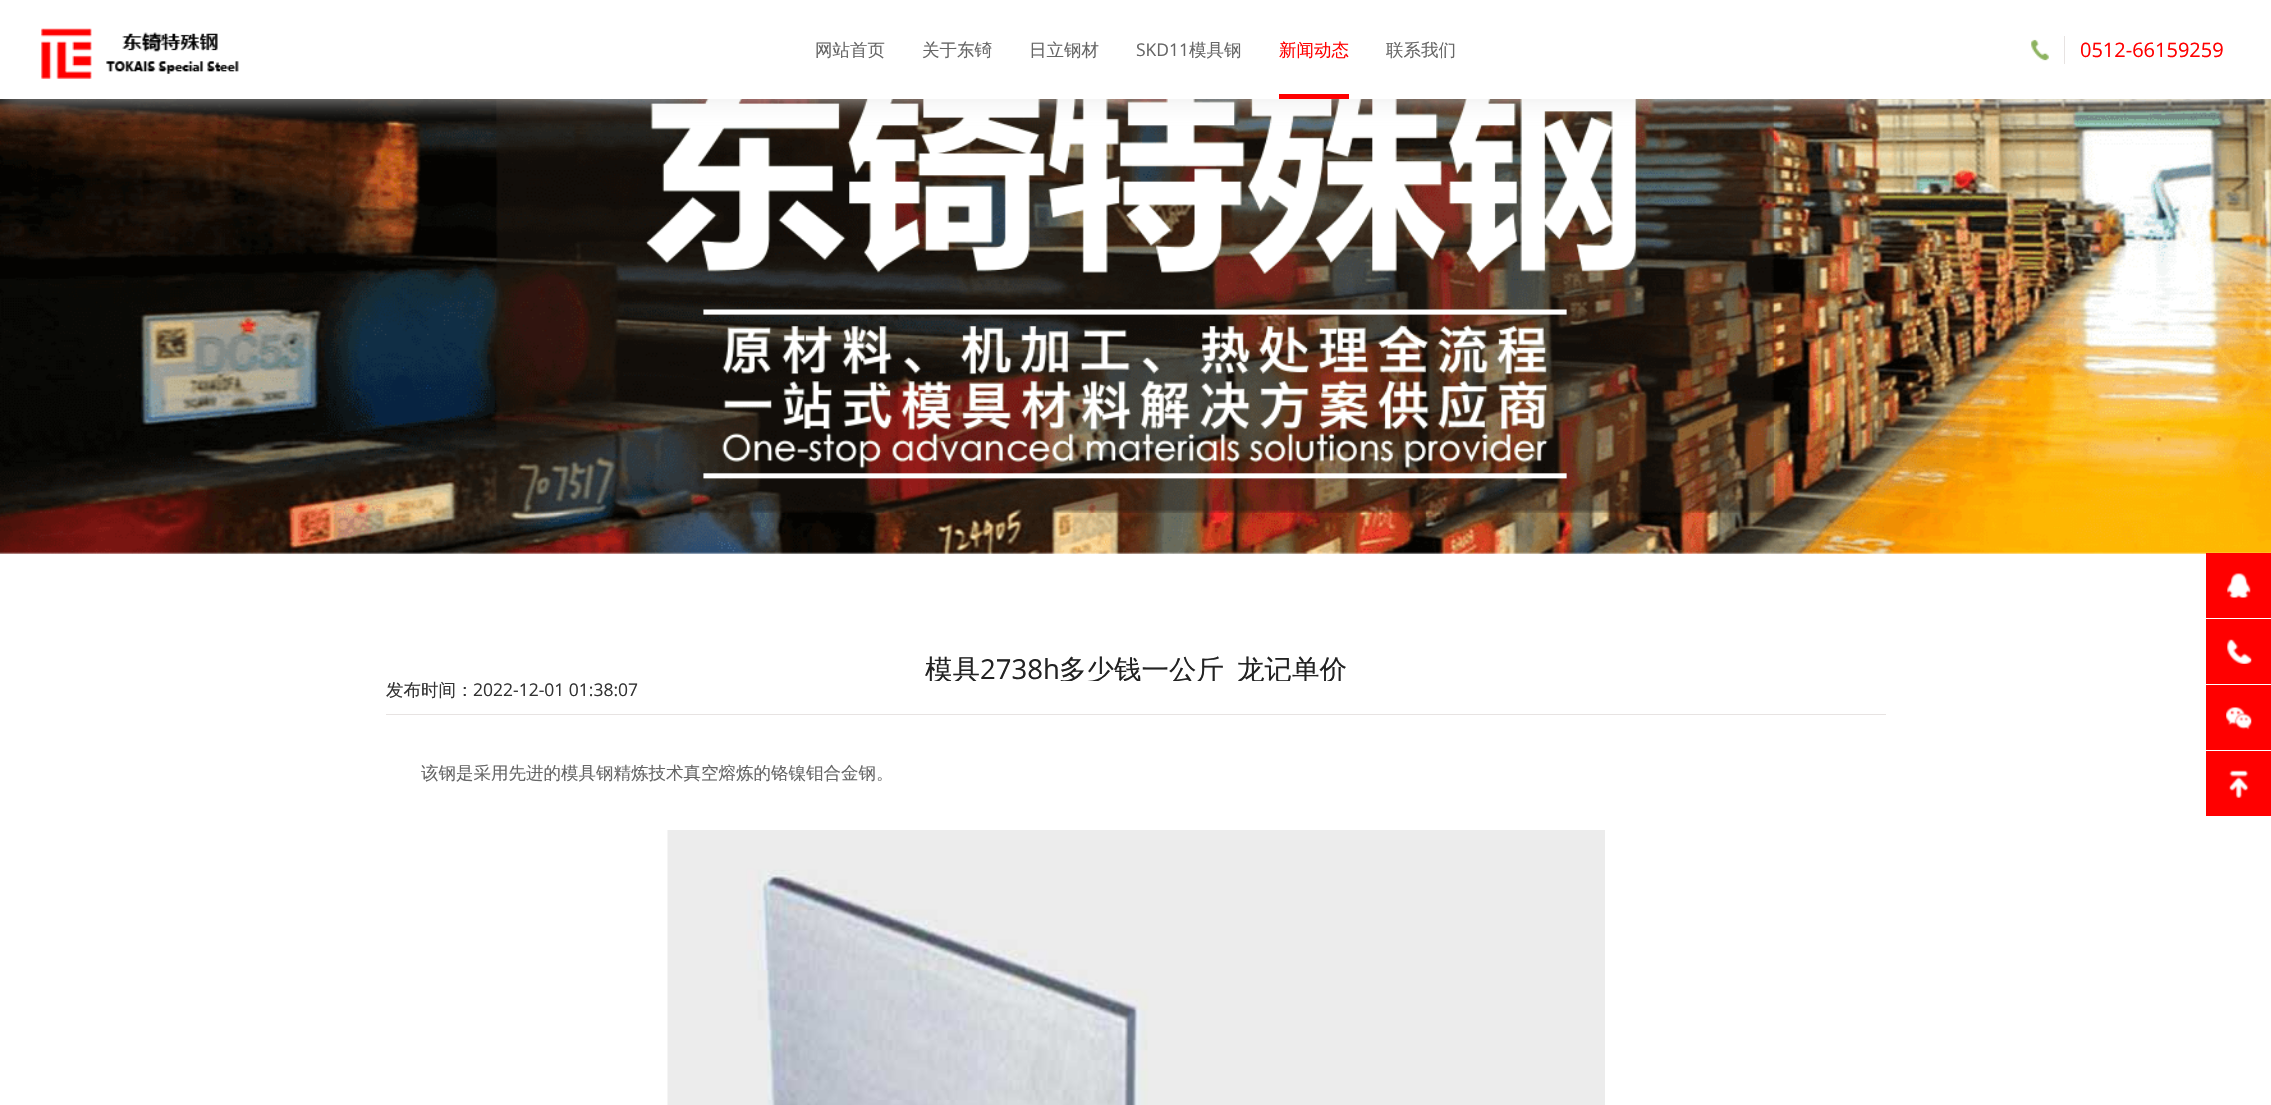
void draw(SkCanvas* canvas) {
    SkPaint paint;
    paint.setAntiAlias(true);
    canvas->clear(0xFFFFFFFF);
    canvas->drawImageRect(SkImages::DeferredFromEncodedData(SkData::MakeFromFileName("img3.png")), SkRect::MakeXYWH(0, 99, 2271, 455), SkSamplingOptions());
    paint.setColor(0xCCE5E5E5);
    paint.setMaskFilter(SkMaskFilter::MakeBlur(kNormal_SkBlurStyle, 12.5f));
    canvas->drawRect(SkRect::MakeXYWH(0, 0, 2271, 99), paint);
    paint.setMaskFilter(nullptr);
    paint.setColor(0xFFFFFFFF);
    canvas->drawRect(SkRect::MakeXYWH(0, 0, 2271, 99), paint);
    canvas->drawImageRect(SkImages::DeferredFromEncodedData(SkData::MakeFromFileName("img1.png")), SkRect::MakeXYWH(41, 28, 198, 51), SkSamplingOptions());
    SkFont font1(fontMgr->matchFamilyStyle("WenQuanYi Zen Hei", SkFontStyle(500, SkFontStyle::kNormal_Width, SkFontStyle::kUpright_Slant)), 17.5f);
    font1.setSubpixel(true);
    paint.setColor(0xFF666666);
    canvas->drawString("网站首页", 815, 56, font1, paint);
    canvas->drawString("关于东锜", 922, 56, font1, paint);
    canvas->drawString("日立钢材", 1029, 56, font1, paint);
    SkFont font2(fontMgr->matchFamilyStyle("Open Sans", SkFontStyle::Normal()), 17.5f);
    font2.setSubpixel(true);
    canvas->drawString("SKD11", 1136, 56, font2, paint);
    canvas->drawString("模具钢", 1189, 56, font1, paint);
    paint.setColor(0xFFFF0000);
    canvas->drawString("新闻动态", 1279, 56, font1, paint);
    canvas->drawRect(SkRect::MakeXYWH(1279, 94, 70, 5), paint);
    paint.setColor(0xFF666666);
    canvas->drawString("联系我们", 1386, 56, font1, paint);
    canvas->drawImageRect(SkImages::DeferredFromEncodedData(SkData::MakeFromFileName("img2.png")), SkRect::MakeXYWH(2031, 39, 18, 22), SkSamplingOptions());
    SkFont font3(fontMgr->matchFamilyStyle("Open Sans", SkFontStyle::Normal()), 20);
    font3.setSubpixel(true);
    paint.setColor(0xFFFF0000);
    canvas->drawString("0512-66159259", 2080, 57, font3, paint);
    paint.setColor(0xFFE7E3E2);
    canvas->drawRect(SkRect::MakeXYWH(2064, 36, 1, 28), paint);
    canvas->drawRect(SkRect::MakeXYWH(386, 714, 1500, 1), paint);
    canvas->save();
    canvas->clipRect(SkRect::MakeXYWH(386, 654, 1500, 27));
    SkFont font4(fontMgr->matchFamilyStyle("WenQuanYi Zen Hei", SkFontStyle(500, SkFontStyle::kNormal_Width, SkFontStyle::kUpright_Slant)), 27.5f);
    font4.setSubpixel(true);
    paint.setColor(0xFF222222);
    canvas->drawString("模具", 925, 679, font4, paint);
    canvas->restore();
    SkFont font5(fontMgr->matchFamilyStyle("Open Sans", SkFontStyle::Normal()), 27.5f);
    font5.setSubpixel(true);
    canvas->drawString("2738h", 980, 679, font5, paint);
    canvas->save();
    canvas->clipRect(SkRect::MakeXYWH(386, 654, 1500, 27));
    canvas->drawString("多少钱一公斤", 1059, 679, font4, paint);
    canvas->drawString("龙记单价", 1237, 679, font4, paint);
    canvas->restore();
    paint.setColor(0xFF333333);
    canvas->drawString("发布时间：", 386, 696, font1, paint);
    canvas->drawString("2022-12-01 01:38:07", 473, 696, font2, paint);
    paint.setColor(0xFF666666);
    canvas->drawString("该钢是采用先进的模具钢精炼技术真空熔炼的铬镍钼合金钢。", 421, 779, font1, paint);
    canvas->drawImageRect(SkImages::DeferredFromEncodedData(SkData::MakeFromFileName("img4.png")), SkRect::MakeXYWH(667, 830, 938, 275), SkSamplingOptions());
    paint.setColor(0xFFFF0000);
    canvas->drawRect(SkRect::MakeXYWH(2206, 553, 65, 65), paint);
    canvas->drawImageRect(SkImages::DeferredFromEncodedData(SkData::MakeFromFileName("img5.png")), SkRect::MakeXYWH(2227, 573, 24, 25), SkSamplingOptions());
    canvas->drawRect(SkRect::MakeXYWH(2206, 619, 65, 65), paint);
    canvas->drawImageRect(SkImages::DeferredFromEncodedData(SkData::MakeFromFileName("img6.png")), SkRect::MakeXYWH(2227, 639, 25, 25), SkSamplingOptions());
    canvas->drawRect(SkRect::MakeXYWH(2206, 685, 65, 65), paint);
    canvas->drawImageRect(SkImages::DeferredFromEncodedData(SkData::MakeFromFileName("img7.png")), SkRect::MakeXYWH(2226, 707, 26, 23), SkSamplingOptions());
    canvas->drawRect(SkRect::MakeXYWH(2206, 751, 65, 65), paint);
    canvas->drawImageRect(SkImages::DeferredFromEncodedData(SkData::MakeFromFileName("img8.png")), SkRect::MakeXYWH(2229, 770, 20, 28), SkSamplingOptions());
}
